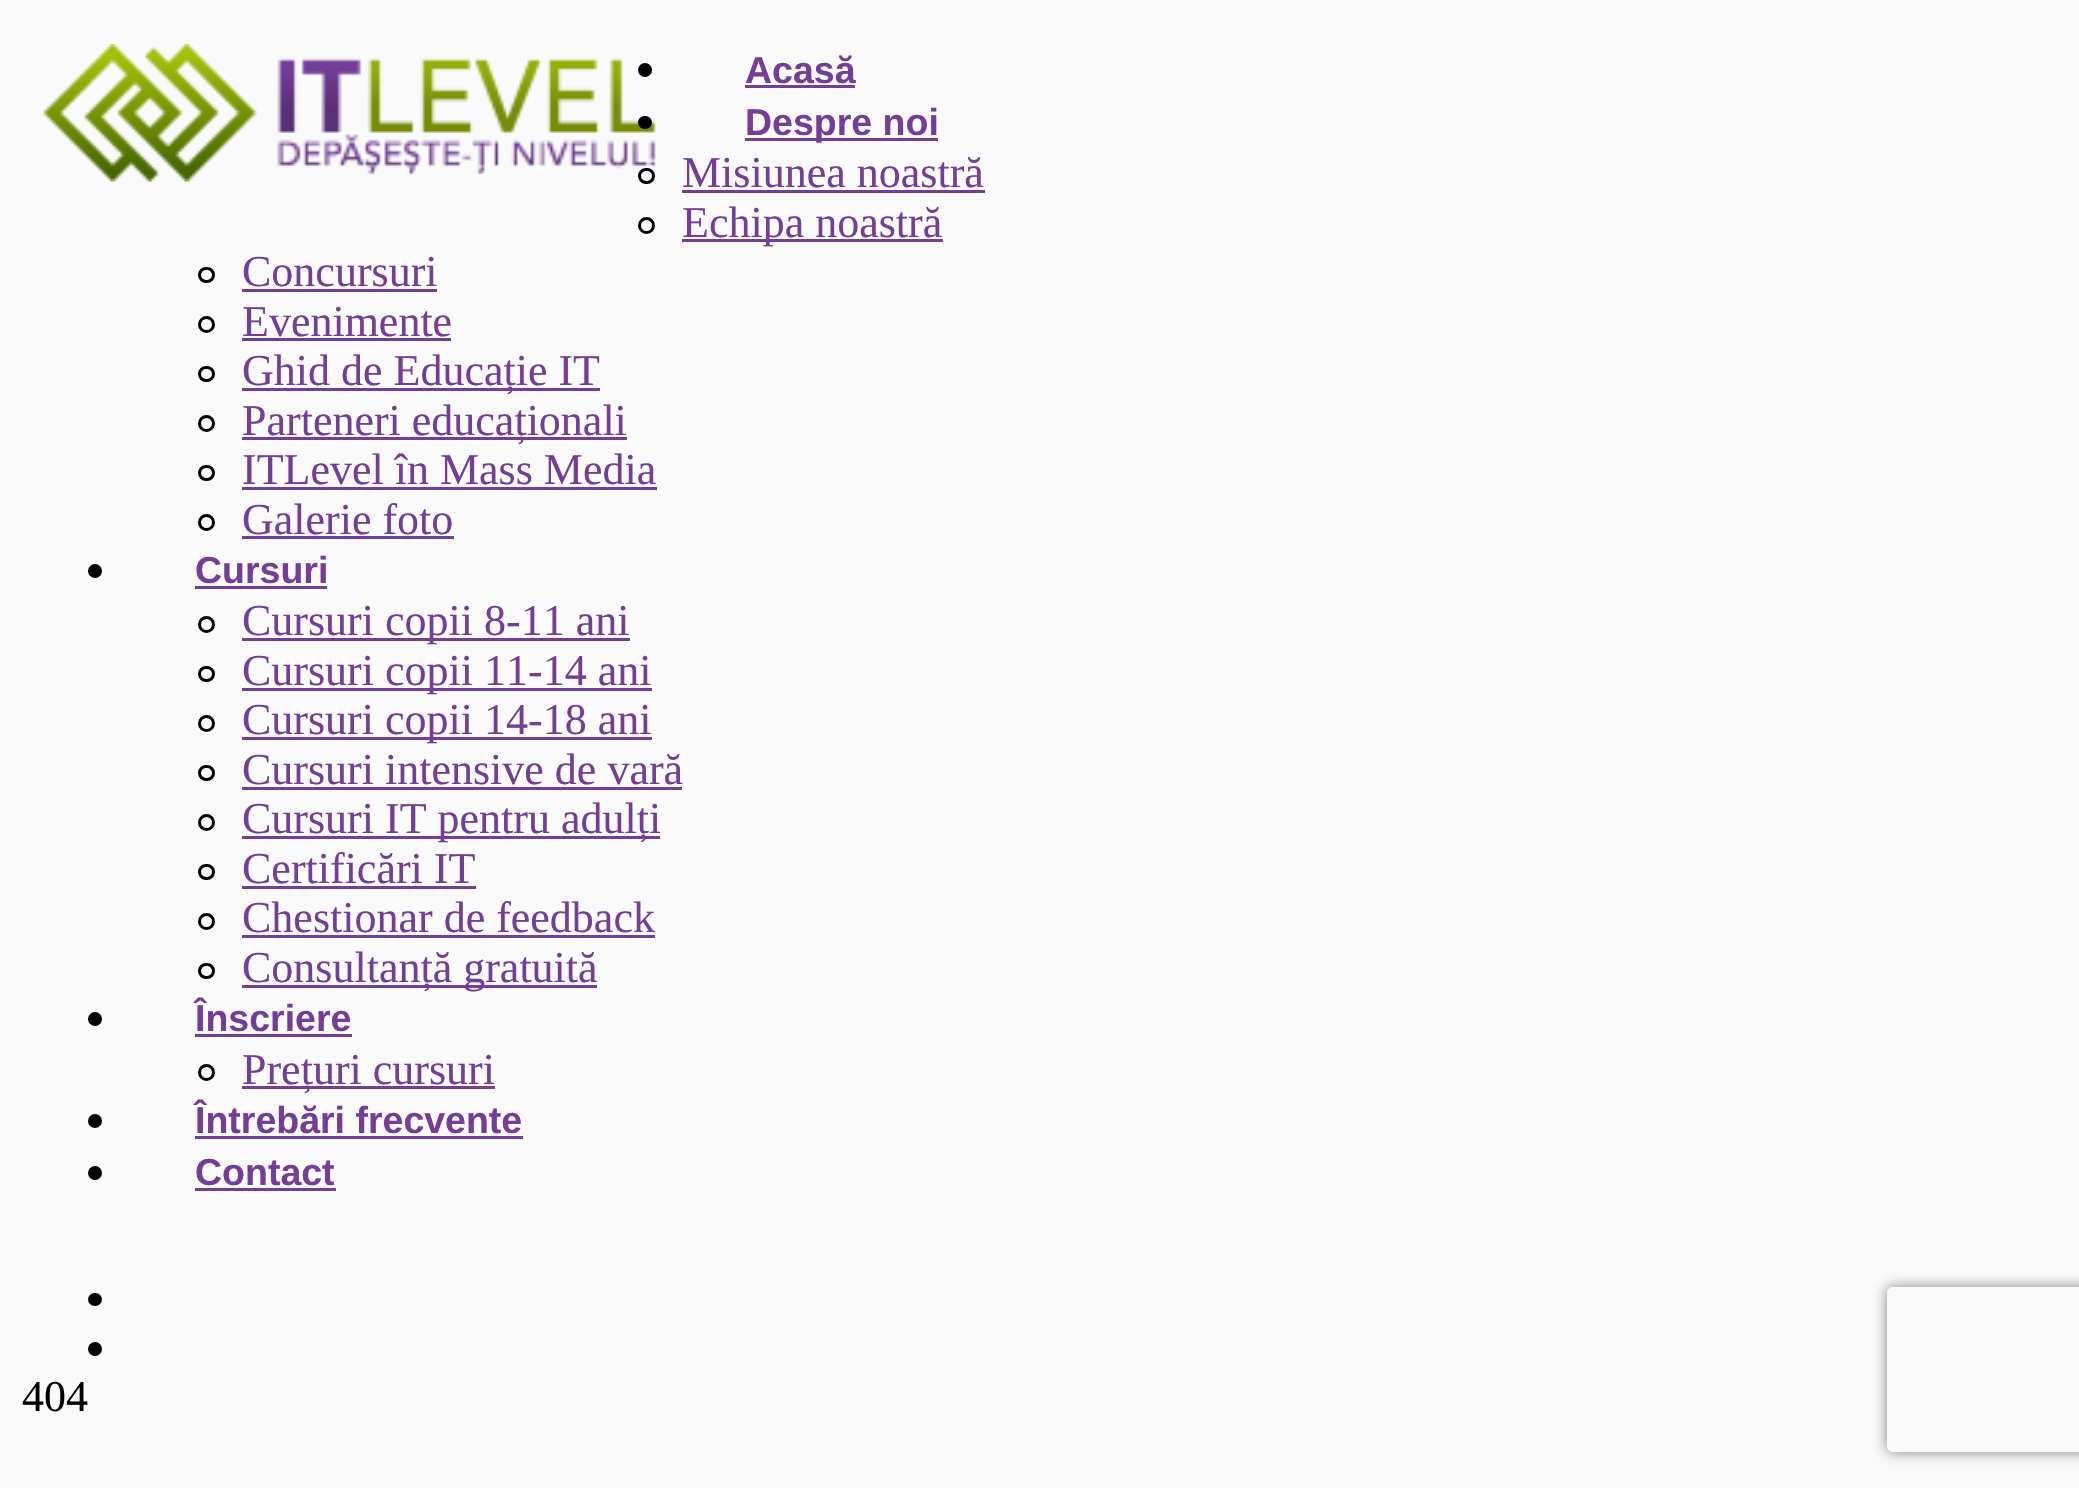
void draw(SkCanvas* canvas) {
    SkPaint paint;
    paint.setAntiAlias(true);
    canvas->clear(0xFFFAFAFA);
    canvas->drawImageRect(SkImages::DeferredFromEncodedData(SkData::MakeFromFileName("img1.png")), SkRect::MakeXYWH(43, 44, 613, 138), SkSamplingOptions());
    paint.setColor(0xFF000000);
    canvas->drawCircle(645, 70, 7, paint);
    SkFont font1(fontMgr->matchFamilyStyle("Liberation Sans", SkFontStyle::Bold()), 37.5f);
    font1.setSubpixel(true);
    paint.setColor(0xFF743E98);
    canvas->drawString("Acasă", 745, 83, font1, paint);
    canvas->drawRect(SkRect::MakeXYWH(745, 85, 110, 3), paint);
    paint.setColor(0xFF000000);
    canvas->drawRoundRect(SkRect::MakeXYWH(638, 116, 14, 13), 6.5f, 6.5f, paint);
    paint.setColor(0xFF743E98);
    canvas->drawRect(SkRect::MakeXYWH(745, 138, 193, 3), paint);
    canvas->drawString("Despre noi", 745, 135, font1, paint);
    paint.setStyle(SkPaint::kStroke_Style);
    paint.setStrokeWidth(3);
    paint.setColor(0xFF000000);
    canvas->drawRoundRect(SkRect::MakeXYWH(639.5f, 169.5f, 14, 13), 6.5f, 6.5f, paint);
    SkFont font2(fontMgr->matchFamilyStyle("Liberation Serif", SkFontStyle::Normal()), 44);
    font2.setSubpixel(true);
    paint.setStyle(SkPaint::kFill_Style);
    paint.setColor(0xFF743E98);
    canvas->drawString("Misiunea noastră", 682, 187, font2, paint);
    canvas->drawRect(SkRect::MakeXYWH(682, 190, 303, 3), paint);
    paint.setStyle(SkPaint::kStroke_Style);
    paint.setColor(0xFF000000);
    canvas->drawCircle(646.5f, 225.5f, 7, paint);
    paint.setStyle(SkPaint::kFill_Style);
    paint.setColor(0xFF743E98);
    canvas->drawRect(SkRect::MakeXYWH(682, 239, 261, 3), paint);
    canvas->drawString("Echipa noastră", 682, 237, font2, paint);
    paint.setStyle(SkPaint::kStroke_Style);
    paint.setColor(0xFF000000);
    canvas->drawRoundRect(SkRect::MakeXYWH(199.5f, 268.5f, 14, 13), 6.5f, 6.5f, paint);
    paint.setStyle(SkPaint::kFill_Style);
    paint.setColor(0xFF743E98);
    canvas->drawString("Concursuri", 242, 286, font2, paint);
    canvas->drawRect(SkRect::MakeXYWH(242, 289, 195, 3), paint);
    paint.setStyle(SkPaint::kStroke_Style);
    paint.setColor(0xFF000000);
    canvas->drawCircle(206.5f, 324.5f, 7, paint);
    paint.setStyle(SkPaint::kFill_Style);
    paint.setColor(0xFF743E98);
    canvas->drawString("Evenimente", 242, 336, font2, paint);
    canvas->drawRect(SkRect::MakeXYWH(242, 338, 209, 3), paint);
    paint.setStyle(SkPaint::kStroke_Style);
    paint.setColor(0xFF000000);
    canvas->drawRoundRect(SkRect::MakeXYWH(199.5f, 367.5f, 14, 13), 6.5f, 6.5f, paint);
    paint.setStyle(SkPaint::kFill_Style);
    paint.setColor(0xFF743E98);
    canvas->drawRect(SkRect::MakeXYWH(242, 388, 358, 3), paint);
    canvas->drawString("Ghid de Educație IT", 242, 385, font2, paint);
    paint.setStyle(SkPaint::kStroke_Style);
    paint.setColor(0xFF000000);
    canvas->drawCircle(206.5f, 423.5f, 7, paint);
    paint.setStyle(SkPaint::kFill_Style);
    paint.setColor(0xFF743E98);
    canvas->drawRect(SkRect::MakeXYWH(242, 437, 385, 3), paint);
    canvas->drawString("Parteneri educaționali", 242, 435, font2, paint);
    paint.setStyle(SkPaint::kStroke_Style);
    paint.setColor(0xFF000000);
    canvas->drawRoundRect(SkRect::MakeXYWH(199.5f, 466.5f, 14, 13), 6.5f, 6.5f, paint);
    paint.setStyle(SkPaint::kFill_Style);
    paint.setColor(0xFF743E98);
    canvas->drawString("ITLevel în Mass Media", 242, 484, font2, paint);
    canvas->drawRect(SkRect::MakeXYWH(242, 487, 415, 3), paint);
    paint.setStyle(SkPaint::kStroke_Style);
    paint.setColor(0xFF000000);
    canvas->drawCircle(206.5f, 522.5f, 7, paint);
    paint.setStyle(SkPaint::kFill_Style);
    paint.setColor(0xFF743E98);
    canvas->drawString("Galerie foto", 242, 534, font2, paint);
    canvas->drawRect(SkRect::MakeXYWH(242, 536, 212, 3), paint);
    paint.setColor(0xFF000000);
    canvas->drawCircle(95, 571, 7, paint);
    paint.setColor(0xFF743E98);
    canvas->drawString("Cursuri", 195, 583, font1, paint);
    canvas->drawRect(SkRect::MakeXYWH(195, 586, 132, 3), paint);
    paint.setStyle(SkPaint::kStroke_Style);
    paint.setColor(0xFF000000);
    canvas->drawCircle(206.5f, 624.5f, 7, paint);
    paint.setStyle(SkPaint::kFill_Style);
    paint.setColor(0xFF743E98);
    canvas->drawRect(SkRect::MakeXYWH(242, 638, 388, 3), paint);
    canvas->drawString("Cursuri copii 8-11 ani", 242, 635, font2, paint);
    paint.setStyle(SkPaint::kStroke_Style);
    paint.setColor(0xFF000000);
    canvas->drawRoundRect(SkRect::MakeXYWH(199.5f, 667.5f, 14, 13), 6.5f, 6.5f, paint);
    paint.setStyle(SkPaint::kFill_Style);
    paint.setColor(0xFF743E98);
    canvas->drawRect(SkRect::MakeXYWH(242, 688, 410, 3), paint);
    canvas->drawString("Cursuri copii 11-14 ani", 242, 685, font2, paint);
    paint.setStyle(SkPaint::kStroke_Style);
    paint.setColor(0xFF000000);
    canvas->drawCircle(206.5f, 723.5f, 7, paint);
    paint.setStyle(SkPaint::kFill_Style);
    paint.setColor(0xFF743E98);
    canvas->drawRect(SkRect::MakeXYWH(242, 737, 410, 3), paint);
    canvas->drawString("Cursuri copii 14-18 ani", 242, 734, font2, paint);
    paint.setStyle(SkPaint::kStroke_Style);
    paint.setColor(0xFF000000);
    canvas->drawRoundRect(SkRect::MakeXYWH(199.5f, 766.5f, 14, 13), 6.5f, 6.5f, paint);
    paint.setStyle(SkPaint::kFill_Style);
    paint.setColor(0xFF743E98);
    canvas->drawString("Cursuri intensive de vară", 242, 784, font2, paint);
    canvas->drawRect(SkRect::MakeXYWH(242, 787, 440, 3), paint);
    paint.setStyle(SkPaint::kStroke_Style);
    paint.setColor(0xFF000000);
    canvas->drawCircle(206.5f, 822.5f, 7, paint);
    paint.setStyle(SkPaint::kFill_Style);
    paint.setColor(0xFF743E98);
    canvas->drawRect(SkRect::MakeXYWH(242, 836, 418, 3), paint);
    canvas->drawString("Cursuri IT pentru adulți", 242, 833, font2, paint);
    paint.setStyle(SkPaint::kStroke_Style);
    paint.setColor(0xFF000000);
    canvas->drawRoundRect(SkRect::MakeXYWH(199.5f, 865.5f, 14, 13), 6.5f, 6.5f, paint);
    paint.setStyle(SkPaint::kFill_Style);
    paint.setColor(0xFF743E98);
    canvas->drawString("Certificări IT", 242, 883, font2, paint);
    canvas->drawRect(SkRect::MakeXYWH(242, 886, 234, 3), paint);
    paint.setStyle(SkPaint::kStroke_Style);
    paint.setColor(0xFF000000);
    canvas->drawCircle(206.5f, 921.5f, 7, paint);
    paint.setStyle(SkPaint::kFill_Style);
    paint.setColor(0xFF743E98);
    canvas->drawString("Chestionar de feedback", 242, 932, font2, paint);
    canvas->drawRect(SkRect::MakeXYWH(242, 935, 413, 3), paint);
    paint.setStyle(SkPaint::kStroke_Style);
    paint.setColor(0xFF000000);
    canvas->drawRoundRect(SkRect::MakeXYWH(199.5f, 964.5f, 14, 13), 6.5f, 6.5f, paint);
    paint.setStyle(SkPaint::kFill_Style);
    paint.setColor(0xFF743E98);
    canvas->drawRect(SkRect::MakeXYWH(242, 985, 355, 3), paint);
    canvas->drawString("Consultanță gratuită", 242, 982, font2, paint);
    paint.setColor(0xFF000000);
    canvas->drawCircle(95, 1019, 7, paint);
    paint.setColor(0xFF743E98);
    canvas->drawString("Înscriere", 195, 1031, font1, paint);
    canvas->drawRect(SkRect::MakeXYWH(195, 1034, 157, 3), paint);
    paint.setStyle(SkPaint::kStroke_Style);
    paint.setColor(0xFF000000);
    canvas->drawCircle(206.5f, 1072.5f, 7, paint);
    paint.setStyle(SkPaint::kFill_Style);
    paint.setColor(0xFF743E98);
    canvas->drawRect(SkRect::MakeXYWH(242, 1086, 253, 3), paint);
    canvas->drawString("Prețuri cursuri", 242, 1084, font2, paint);
    paint.setColor(0xFF000000);
    canvas->drawCircle(95, 1121, 7, paint);
    paint.setColor(0xFF743E98);
    canvas->drawString("Întrebări frecvente", 195, 1133, font1, paint);
    canvas->drawRect(SkRect::MakeXYWH(195, 1136, 328, 3), paint);
    paint.setColor(0xFF000000);
    canvas->drawCircle(95, 1173, 7, paint);
    paint.setColor(0xFF743E98);
    canvas->drawString("Contact", 195, 1185, font1, paint);
    canvas->drawRect(SkRect::MakeXYWH(195, 1188, 141, 3), paint);
    paint.setColor(0xFF000000);
    canvas->drawRoundRect(SkRect::MakeXYWH(88, 1293, 14, 13), 6.5f, 6.5f, paint);
    canvas->drawCircle(95, 1349, 7, paint);
    canvas->drawString("404", 22, 1411, font2, paint);
    canvas->save();
    canvas->clipPath(SkPathBuilder(SkPathFillType::kEvenOdd).moveTo(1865, 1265).lineTo(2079, 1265).lineTo(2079, 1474).lineTo(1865, 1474).close().moveTo(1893, 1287).lineTo(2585, 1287).cubicTo(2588.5f, 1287, 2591, 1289.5f, 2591, 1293).lineTo(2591, 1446).cubicTo(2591, 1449.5f, 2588.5f, 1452, 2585, 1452).lineTo(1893, 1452).cubicTo(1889.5f, 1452, 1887, 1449.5f, 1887, 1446).lineTo(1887, 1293).cubicTo(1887, 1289.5f, 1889.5f, 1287, 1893, 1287).close().detach(), true);
    paint.setColor(0xFF808080);
    paint.setMaskFilter(SkMaskFilter::MakeBlur(kNormal_SkBlurStyle, 7));
    canvas->drawRoundRect(SkRect::MakeXYWH(1887, 1287, 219, 165), 6, 6, paint);
    paint.setMaskFilter(nullptr);
    canvas->restore();
}
